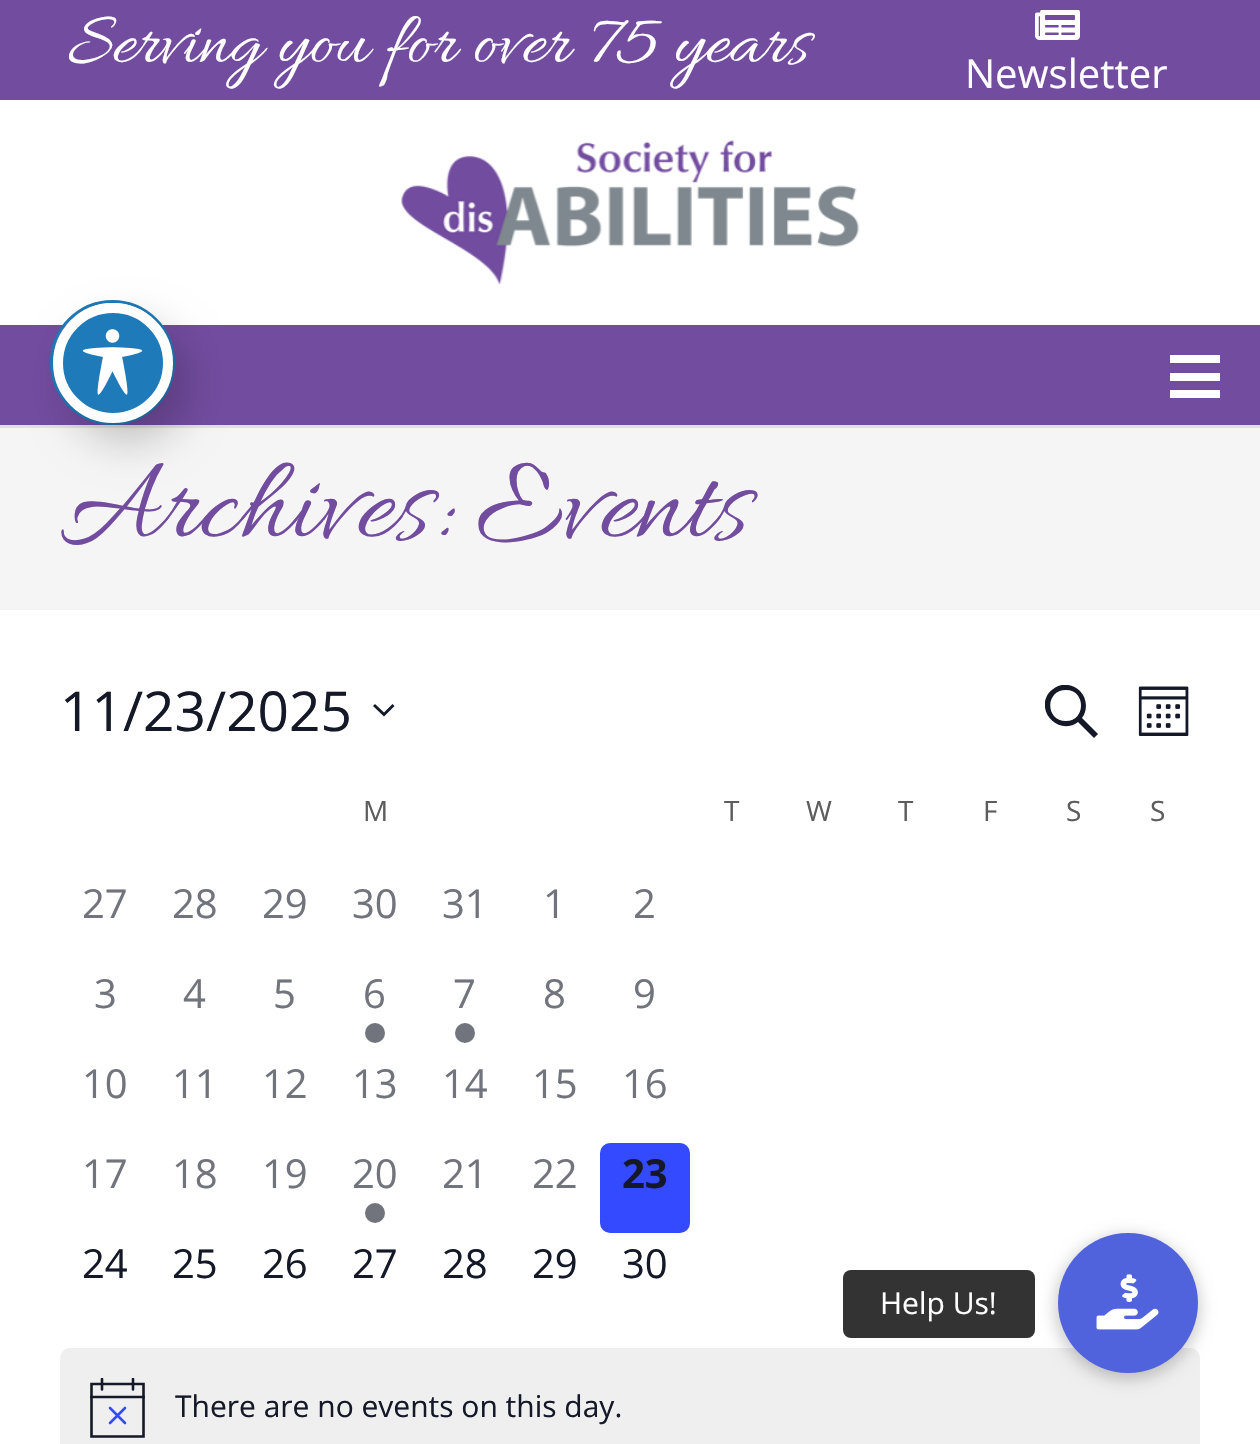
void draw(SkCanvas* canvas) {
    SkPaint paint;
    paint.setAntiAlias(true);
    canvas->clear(0xFFFFFFFF);
    paint.setColor(0xFF724C9F);
    canvas->drawRect(SkRect::MakeXYWH(0, 0, 1260, 100), paint);
    SkFont font1(fontMgr->matchFamilyStyle("Allura", SkFontStyle::Normal()), 75);
    font1.setSubpixel(true);
    paint.setColor(0xFFFFFFFF);
    canvas->drawString("Serving you for over 75 years", 68, 61, font1, paint);
    canvas->drawImageRect(SkImages::DeferredFromEncodedData(SkData::MakeFromFileName("img1.png")), SkRect::MakeXYWH(1035, 10, 45, 30), SkSamplingOptions());
    SkFont font2(fontMgr->matchFamilyStyle("Open Sans", SkFontStyle::Normal()), 40);
    font2.setSubpixel(true);
    canvas->drawString("Newsletter", 965, 88, font2, paint);
    canvas->drawImageRect(SkImages::DeferredFromEncodedData(SkData::MakeFromFileName("img2.png")), SkRect::MakeXYWH(401, 140, 459, 145), SkSamplingOptions());
    paint.setColor(0xFFE1E1E1);
    canvas->drawRect(SkRect::MakeXYWH(0, 425, 1260, 3), paint);
    paint.setColor(0xFF724C9F);
    canvas->drawRect(SkRect::MakeXYWH(0, 325, 1260, 100), paint);
    paint.setColor(0xFFFFFFFF);
    canvas->drawRect(SkRect::MakeXYWH(1170, 373, 50, 8), paint);
    canvas->drawRect(SkRect::MakeXYWH(1170, 355, 50, 8), paint);
    canvas->drawRect(SkRect::MakeXYWH(1170, 390, 50, 8), paint);
    paint.setColor(0xFFF5F5F5);
    canvas->drawRect(SkRect::MakeXYWH(0, 428, 1260, 182), paint);
    SkFont font3(fontMgr->matchFamilyStyle("Allura", SkFontStyle::Normal()), 120);
    font3.setSubpixel(true);
    paint.setColor(0xFF724C9F);
    canvas->drawString("Archives: Events", 60, 535, font3, paint);
    SkFont font4(fontMgr->matchFamilyStyle("Open Sans", SkFontStyle::Normal()), 55);
    font4.setSubpixel(true);
    paint.setColor(0xFF141827);
    canvas->drawString("11/23/2025", 60, 731, font4, paint);
    canvas->drawPath(SkPathBuilder(SkPathFillType::kEvenOdd).moveTo(375, 704).lineTo(384, 712.5f).lineTo(392.5f, 704).lineTo(394.5f, 706).lineTo(384, 716.5f).lineTo(373, 706).close().detach(), paint);
    canvas->save();
    canvas->clipRect(SkRect::MakeXYWH(1045, 685, 53, 53));
    canvas->drawPath(SkPathBuilder(SkPathFillType::kEvenOdd).moveTo(1082, 718).lineTo(1098, 734).lineTo(1094, 738).lineTo(1078, 722).cubicTo(1060, 736, 1036, 713, 1048, 694).cubicTo(1051, 690, 1056, 686, 1062, 685).cubicTo(1068, 684, 1075, 686, 1080, 691).cubicTo(1087, 698, 1088, 710, 1082, 718).close().moveTo(1066, 690).cubicTo(1045, 690, 1045, 721, 1066, 721).cubicTo(1086, 721, 1086, 690, 1066, 690).close().detach(), paint);
    canvas->restore();
    canvas->drawImageRect(SkImages::DeferredFromEncodedData(SkData::MakeFromFileName("img3.png")), SkRect::MakeXYWH(1138, 686, 51, 50), SkSamplingOptions());
    SkFont font5(fontMgr->matchFamilyStyle("Open Sans", SkFontStyle::Normal()), 28);
    font5.setSubpixel(true);
    paint.setColor(0xFF5D5D5D);
    canvas->drawString("M", 363, 821, font5, paint);
    canvas->drawString("T", 724, 821, font5, paint);
    canvas->drawString("W", 806, 821, font5, paint);
    canvas->drawString("T", 898, 821, font5, paint);
    canvas->drawString("F", 983, 821, font5, paint);
    canvas->drawString("S", 1066, 821, font5, paint);
    canvas->drawString("S", 1150, 821, font5, paint);
    paint.setColor(0xFF72747D);
    canvas->drawString("27", 82, 918, font2, paint);
    canvas->drawString("28", 172, 918, font2, paint);
    canvas->drawString("29", 262, 918, font2, paint);
    canvas->drawString("30", 352, 918, font2, paint);
    canvas->drawString("31", 442, 918, font2, paint);
    canvas->drawString("1", 543, 918, font2, paint);
    canvas->drawString("2", 633, 918, font2, paint);
    canvas->drawString("3", 94, 1008, font2, paint);
    canvas->drawString("4", 183, 1008, font2, paint);
    canvas->drawString("5", 273, 1008, font2, paint);
    canvas->drawString("6", 363, 1008, font2, paint);
    canvas->drawCircle(375, 1033, 10, paint);
    canvas->drawString("7", 453, 1008, font2, paint);
    canvas->drawCircle(465, 1033, 10, paint);
    canvas->drawString("8", 543, 1008, font2, paint);
    canvas->drawString("9", 633, 1008, font2, paint);
    canvas->drawString("10", 82, 1098, font2, paint);
    canvas->drawString("11", 172, 1098, font2, paint);
    canvas->drawString("12", 262, 1098, font2, paint);
    canvas->drawString("13", 352, 1098, font2, paint);
    canvas->drawString("14", 442, 1098, font2, paint);
    canvas->drawString("15", 532, 1098, font2, paint);
    canvas->drawString("16", 622, 1098, font2, paint);
    canvas->drawString("17", 82, 1188, font2, paint);
    canvas->drawString("18", 172, 1188, font2, paint);
    canvas->drawString("19", 262, 1188, font2, paint);
    canvas->drawString("20", 352, 1188, font2, paint);
    canvas->drawCircle(375, 1213, 10, paint);
    canvas->drawString("21", 442, 1188, font2, paint);
    canvas->drawString("22", 532, 1188, font2, paint);
    paint.setColor(0xFF334AFF);
    canvas->drawRoundRect(SkRect::MakeXYWH(600, 1143, 90, 90), 10, 10, paint);
    SkFont font6(fontMgr->matchFamilyStyle("Open Sans", SkFontStyle::Bold()), 40);
    font6.setSubpixel(true);
    paint.setColor(0xFF141827);
    canvas->drawString("23", 622, 1188, font6, paint);
    canvas->drawString("24", 82, 1278, font2, paint);
    canvas->drawString("25", 172, 1278, font2, paint);
    canvas->drawString("26", 262, 1278, font2, paint);
    canvas->drawString("27", 352, 1278, font2, paint);
    canvas->drawString("28", 442, 1278, font2, paint);
    canvas->drawString("29", 532, 1278, font2, paint);
    canvas->drawString("30", 622, 1278, font2, paint);
    paint.setColor(0xFFEFEFF0);
    canvas->drawRoundRect(SkRect::MakeXYWH(60, 1348, 1140, 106), 10, 10, paint);
    paint.setStyle(SkPaint::kStroke_Style);
    paint.setStrokeWidth(2.6f);
    paint.setColor(0xFF141827);
    canvas->drawPath(SkPathBuilder().moveTo(91.5f, 1384).lineTo(143.5f, 1384).lineTo(143.5f, 1436.5f).lineTo(91.5f, 1436.5f).close().detach(), paint);
    paint.setStrokeCap(SkPaint::kRound_Cap);
    paint.setColor(0xFF334AFF);
    canvas->drawPath(SkPathBuilder().moveTo(110, 1408).lineTo(125, 1423).moveTo(125, 1408).lineTo(110, 1423).detach(), paint);
    canvas->save();
    canvas->clipRect(SkRect::MakeXYWH(90, 1378, 55, 60));
    paint.setColor(0xFF141827);
    canvas->drawPath(SkPathBuilder().moveTo(102, 1379).lineTo(102, 1389.5f).moveTo(133, 1379).lineTo(133, 1389.5f).detach(), paint);
    canvas->restore();
    paint.setStrokeCap(SkPaint::kSquare_Cap);
    canvas->drawPath(SkPathBuilder().moveTo(91.5f, 1397).lineTo(143.5f, 1397).detach(), paint);
    SkFont font7(fontMgr->matchFamilyStyle("Open Sans", SkFontStyle::Normal()), 30);
    font7.setSubpixel(true);
    paint.setStyle(SkPaint::kFill_Style);
    canvas->drawString("There are no events on this day.", 175, 1417, font7, paint);
    paint.setStyle(SkPaint::kStroke_Style);
    paint.setStrokeWidth(3);
    paint.setStrokeCap(SkPaint::kButt_Cap);
    paint.setColor(0xFF1E7AB9);
    canvas->drawCircle(112.5f, 362.5f, 61, paint);
    paint.setStyle(SkPaint::kFill_Style);
    paint.setColor(0x33000000);
    paint.setMaskFilter(SkMaskFilter::MakeBlur(kNormal_SkBlurStyle, 20));
    canvas->drawRoundRect(SkRect::MakeXYWH(68, 323, 120, 120), 60, 60, paint);
    paint.setMaskFilter(nullptr);
    paint.setColor(0xFF1E7AB9);
    canvas->drawCircle(113, 363, 55, paint);
    paint.setStyle(SkPaint::kStroke_Style);
    paint.setStrokeWidth(10);
    paint.setColor(0xFFFFFFFF);
    canvas->drawCircle(113, 363, 55, paint);
    canvas->drawImageRect(SkImages::DeferredFromEncodedData(SkData::MakeFromFileName("img4.png")), SkRect::MakeXYWH(82, 329, 61, 66), SkSamplingOptions());
    paint.setStyle(SkPaint::kFill_Style);
    paint.setColor(0x33000000);
    paint.setMaskFilter(SkMaskFilter::MakeBlur(kNormal_SkBlurStyle, 7.5f));
    canvas->drawRoundRect(SkRect::MakeXYWH(1055, 1235, 145, 145), 72.5f, 72.5f, paint);
    paint.setMaskFilter(nullptr);
    paint.setColor(0xFF5163DC);
    canvas->drawCircle(1128, 1303, 70, paint);
    paint.setColor(0xFF333333);
    canvas->drawRoundRect(SkRect::MakeXYWH(843, 1270, 192, 68), 8, 8, paint);
    paint.setColor(0xFFFFFFFF);
    canvas->drawString("Help Us!", 880, 1314, font7, paint);
    canvas->drawImageRect(SkImages::DeferredFromEncodedData(SkData::MakeFromFileName("img5.png")), SkRect::MakeXYWH(1096, 1274, 63, 56), SkSamplingOptions());
}
